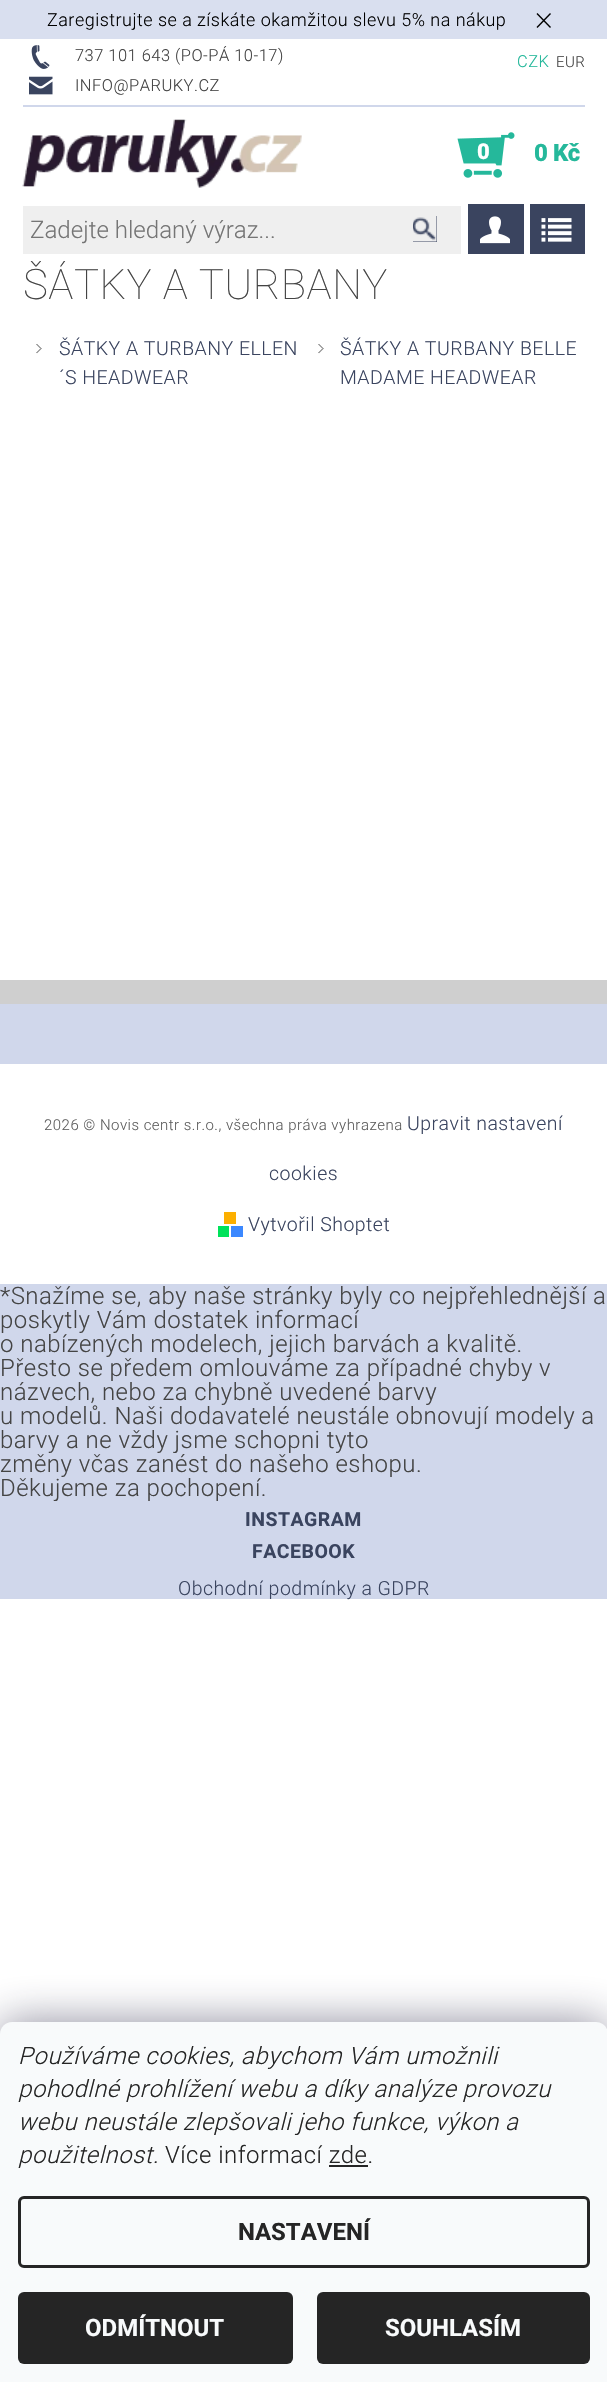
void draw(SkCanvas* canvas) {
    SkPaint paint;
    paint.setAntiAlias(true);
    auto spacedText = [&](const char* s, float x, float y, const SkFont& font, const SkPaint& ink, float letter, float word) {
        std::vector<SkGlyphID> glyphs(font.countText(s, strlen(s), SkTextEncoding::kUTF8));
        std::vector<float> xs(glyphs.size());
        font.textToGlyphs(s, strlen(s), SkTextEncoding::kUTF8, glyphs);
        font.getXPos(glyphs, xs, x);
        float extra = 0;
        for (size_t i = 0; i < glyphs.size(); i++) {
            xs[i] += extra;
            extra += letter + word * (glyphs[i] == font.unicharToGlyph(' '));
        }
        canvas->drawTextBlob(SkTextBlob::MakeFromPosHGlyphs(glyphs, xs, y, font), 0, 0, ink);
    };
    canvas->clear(0xFFFFFFFF);
    paint.setColor(0xFFD9DFEF);
    canvas->drawRect(SkRect::MakeXYWH(0, 0, 607, 39), paint);
    SkFont font1(fontMgr->matchFamilyStyle("Roboto", SkFontStyle(300, SkFontStyle::kNormal_Width, SkFontStyle::kUpright_Slant)), 18);
    font1.setSubpixel(true);
    paint.setColor(0xFF000000);
    spacedText("Zaregistrujte se a získáte okamžitou slevu 5% na nákup", 47, 26, font1, paint, 0.48f, 0);
    canvas->drawPath(SkPathBuilder().moveTo(537.5f, 13).lineTo(551, 27).lineTo(550, 28).lineTo(536.5f, 14).close().detach(), paint);
    canvas->drawPath(SkPathBuilder().moveTo(550, 13).lineTo(551, 14).lineTo(537.5f, 28).lineTo(536.5f, 27).close().detach(), paint);
    paint.setColor(0xFFCFCFCF);
    canvas->drawRect(SkRect::MakeXYWH(0, 980, 607, 24), paint);
    paint.setColor(0xFFD0D7EB);
    canvas->drawRect(SkRect::MakeXYWH(23, 105, 562, 2), paint);
    canvas->drawImageRect(SkImages::DeferredFromEncodedData(SkData::MakeFromFileName("img1.png")), SkRect::MakeXYWH(31, 45, 19, 24), SkSamplingOptions());
    SkFont font2(fontMgr->matchFamilyStyle("Roboto", SkFontStyle(300, SkFontStyle::kNormal_Width, SkFontStyle::kUpright_Slant)), 16.5f);
    font2.setSubpixel(true);
    paint.setColor(0xFF444444);
    spacedText("737 101 643 (PO-PÁ 10-17)", 75, 61, font2, paint, 0.48f, 0);
    canvas->drawImageRect(SkImages::DeferredFromEncodedData(SkData::MakeFromFileName("img2.png")), SkRect::MakeXYWH(29, 76, 24, 19), SkSamplingOptions());
    spacedText("INFO@PARUKY.CZ", 75, 91, font2, paint, 0.48f, 0);
    paint.setColor(0xFF25B89B);
    spacedText("CZK", 517, 67, font2, paint, 0.48f, 0);
    SkFont font3(fontMgr->matchFamilyStyle("Roboto", SkFontStyle(300, SkFontStyle::kNormal_Width, SkFontStyle::kUpright_Slant)), 15);
    font3.setSubpixel(true);
    paint.setColor(0xFF444444);
    spacedText("EUR", 556, 67, font3, paint, 0.48f, 0);
    canvas->drawImageRect(SkImages::DeferredFromEncodedData(SkData::MakeFromFileName("img3.png")), SkRect::MakeXYWH(22, 119, 280, 69), SkSamplingOptions());
    canvas->drawImageRect(SkImages::DeferredFromEncodedData(SkData::MakeFromFileName("img4.png")), SkRect::MakeXYWH(457, 132, 58, 46), SkSamplingOptions());
    SkFont font4(fontMgr->matchFamilyStyle("Roboto", SkFontStyle(900, SkFontStyle::kNormal_Width, SkFontStyle::kUpright_Slant)), 22);
    font4.setSubpixel(true);
    paint.setColor(0xFFFFFFFF);
    spacedText("0", 477, 159, font4, paint, -0.5f, 0);
    SkFont font5(fontMgr->matchFamilyStyle("Roboto", SkFontStyle(900, SkFontStyle::kNormal_Width, SkFontStyle::kUpright_Slant)), 24);
    font5.setSubpixel(true);
    paint.setColor(0xFF25B89B);
    spacedText("0 Kč", 534, 161, font5, paint, -0.5f, 0);
    paint.setColor(0xFFEFEFEF);
    canvas->drawRect(SkRect::MakeXYWH(23, 206, 438, 48), paint);
    SkFont font6(fontMgr->matchFamilyStyle("Roboto", SkFontStyle(300, SkFontStyle::kNormal_Width, SkFontStyle::kUpright_Slant)), 24.1f);
    font6.setSubpixel(true);
    paint.setColor(0xFF757575);
    canvas->drawString("Zadejte hledaný výraz...", 30, 238, font6, paint);
    paint.setColor(0xFF3A445F);
    canvas->drawRect(SkRect::MakeXYWH(413, 216, 24, 26), paint);
    canvas->drawImageRect(SkImages::DeferredFromEncodedData(SkData::MakeFromFileName("img5.png")), SkRect::MakeXYWH(413, 216, 24, 26), SkSamplingOptions());
    canvas->drawRect(SkRect::MakeXYWH(468, 204, 56, 50), paint);
    canvas->drawImageRect(SkImages::DeferredFromEncodedData(SkData::MakeFromFileName("img6.png")), SkRect::MakeXYWH(480, 216, 30, 28), SkSamplingOptions());
    canvas->drawRect(SkRect::MakeXYWH(530, 204, 55, 50), paint);
    canvas->drawImageRect(SkImages::DeferredFromEncodedData(SkData::MakeFromFileName("img7.png")), SkRect::MakeXYWH(541, 218, 31, 24), SkSamplingOptions());
    SkFont font7(fontMgr->matchFamilyStyle("Roboto", SkFontStyle(100, SkFontStyle::kNormal_Width, SkFontStyle::kUpright_Slant)), 42);
    font7.setSubpixel(true);
    paint.setColor(0xFF444444);
    spacedText("ŠÁTKY A TURBANY", 23, 299, font7, paint, 0.48f, 0);
    canvas->drawImageRect(SkImages::DeferredFromEncodedData(SkData::MakeFromFileName("img8.png")), SkRect::MakeXYWH(36, 344, 6, 10), SkSamplingOptions());
    SkFont font8(fontMgr->matchFamilyStyle("Roboto", SkFontStyle(300, SkFontStyle::kNormal_Width, SkFontStyle::kUpright_Slant)), 19.5f);
    font8.setSubpixel(true);
    paint.setColor(0xFF3A445F);
    spacedText("ŠÁTKY A TURBANY ELLEN", 59, 355, font8, paint, 0.48f, 0);
    spacedText("´S HEADWEAR", 59, 384, font8, paint, 0.48f, 0);
    canvas->drawImageRect(SkImages::DeferredFromEncodedData(SkData::MakeFromFileName("img8.png")), SkRect::MakeXYWH(318, 344, 6, 10), SkSamplingOptions());
    spacedText("ŠÁTKY A TURBANY BELLE", 340, 355, font8, paint, 0.48f, 0);
    spacedText("MADAME HEADWEAR", 340, 384, font8, paint, 0.48f, 0);
    paint.setColor(0xFFD0D7EB);
    canvas->drawRect(SkRect::MakeXYWH(0, 1004, 607, 595), paint);
    paint.setColor(0xFFFFFFFF);
    canvas->drawRect(SkRect::MakeXYWH(0, 1064, 607, 220), paint);
    paint.setColor(0xFF5E5E5E);
    spacedText("2026 © Novis centr s.r.o., všechna práva vyhrazena", 44, 1130, font3, paint, 0.48f, 0);
    paint.setColor(0xFF3A445F);
    spacedText("Upravit nastavení", 407, 1130, font8, paint, 0.48f, 0);
    spacedText("cookies", 269, 1180, font8, paint, 0.48f, 0);
    paint.setColor(0xFFFCAF00);
    canvas->drawRect(SkRect::MakeXYWH(224, 1212, 12, 12), paint);
    paint.setColor(0xFF00E25A);
    canvas->drawRect(SkRect::MakeXYWH(218, 1226, 11, 11), paint);
    paint.setColor(0xFF3B88FF);
    canvas->drawRect(SkRect::MakeXYWH(231, 1226, 12, 11), paint);
    paint.setColor(0xFF3A445F);
    spacedText("Vytvořil Shoptet", 248, 1231, font8, paint, 0.48f, 0);
    SkFont font9(fontMgr->matchFamilyStyle("Roboto", SkFontStyle(300, SkFontStyle::kNormal_Width, SkFontStyle::kUpright_Slant)), 24);
    font9.setSubpixel(true);
    paint.setColor(0xFF444444);
    spacedText("*Snažíme se, aby naše stránky byly co nejpřehlednější a", 0, 1304, font9, paint, 0.48f, 0);
    spacedText("poskytly Vám dostatek informací", 0, 1328, font9, paint, 0.48f, 0);
    spacedText("o nabízených modelech, jejich barvách a kvalitě.", 0, 1352, font9, paint, 0.48f, 0);
    spacedText("Přesto se předem omlouváme za případné chyby v", 0, 1376, font9, paint, 0.48f, 0);
    spacedText("názvech, nebo za chybně uvedené barvy", 0, 1400, font9, paint, 0.48f, 0);
    spacedText("u modelů. Naši dodavatelé neustále obnovují modely a", 0, 1424, font9, paint, 0.48f, 0);
    spacedText("barvy a ne vždy jsme schopni tyto", 0, 1448, font9, paint, 0.48f, 0);
    spacedText("změny včas zanést do našeho eshopu.", 0, 1472, font9, paint, 0.48f, 0);
    spacedText("Děkujeme za pochopení.", 0, 1496, font9, paint, 0.48f, 0);
    SkFont font10(fontMgr->matchFamilyStyle("Roboto", SkFontStyle::Bold()), 19.5f);
    font10.setSubpixel(true);
    paint.setColor(0xFF3A445F);
    spacedText("INSTAGRAM", 245, 1526, font10, paint, 0.48f, 0);
    spacedText("FACEBOOK", 252, 1558, font10, paint, 0.48f, 0);
    spacedText("Obchodní podmínky a GDPR", 178, 1595, font8, paint, 0.48f, 0);
    paint.setColor(0x801B1939);
    paint.setMaskFilter(SkMaskFilter::MakeBlur(kNormal_SkBlurStyle, 22.5f));
    canvas->drawRoundRect(SkRect::MakeXYWH(0, 2022, 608, 360), 12, 12, paint);
    paint.setMaskFilter(nullptr);
    paint.setColor(0xFFF8FAFB);
    canvas->drawPath(SkPathBuilder().moveTo(12, 2022).lineTo(596, 2022).cubicTo(602.5f, 2022, 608, 2027.5f, 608, 2034).lineTo(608, 2382).lineTo(0, 2382).lineTo(0, 2034).cubicTo(0, 2027.5f, 5.5f, 2022, 12, 2022).close().detach(), paint);
    SkFont font11(fontMgr->matchFamilyStyle("Roboto", SkFontStyle(300, SkFontStyle::kNormal_Width, SkFontStyle::kItalic_Slant)), 24);
    font11.setSubpixel(true);
    paint.setColor(0xFF252525);
    spacedText("Používáme cookies, abychom Vám umožnili", 18, 2064, font11, paint, 0.48f, 0);
    spacedText("pohodlné prohlížení webu a díky analýze provozu", 18, 2097, font11, paint, 0.48f, 0);
    spacedText("webu neustále zlepšovali jeho funkce, výkon a", 18, 2130, font11, paint, 0.48f, 0);
    spacedText("použitelnost.", 18, 2163, font11, paint, 0.48f, 0);
    spacedText("Více informací zde.", 165, 2163, font9, paint, 0.48f, 0);
    canvas->drawRect(SkRect::MakeXYWH(329, 2165, 39, 2), paint);
    paint.setStyle(SkPaint::kStroke_Style);
    paint.setStrokeWidth(3);
    canvas->drawRoundRect(SkRect::MakeXYWH(19.5f, 2197.5f, 569, 69), 4.5f, 4.5f, paint);
    SkFont font12(fontMgr->matchFamilyStyle("Roboto", SkFontStyle::Bold()), 24);
    font12.setSubpixel(true);
    paint.setStyle(SkPaint::kFill_Style);
    canvas->drawString("NASTAVENÍ", 238, 2240, font12, paint);
    canvas->drawRoundRect(SkRect::MakeXYWH(18, 2292, 275, 72), 6, 6, paint);
    paint.setColor(0xFFF8FAFB);
    canvas->drawString("ODMÍTNOUT", 85, 2336, font12, paint);
    paint.setColor(0xFF252525);
    canvas->drawRoundRect(SkRect::MakeXYWH(317, 2292, 273, 72), 6, 6, paint);
    paint.setColor(0xFFF8FAFB);
    canvas->drawString("SOUHLASÍM", 385, 2336, font12, paint);
}
